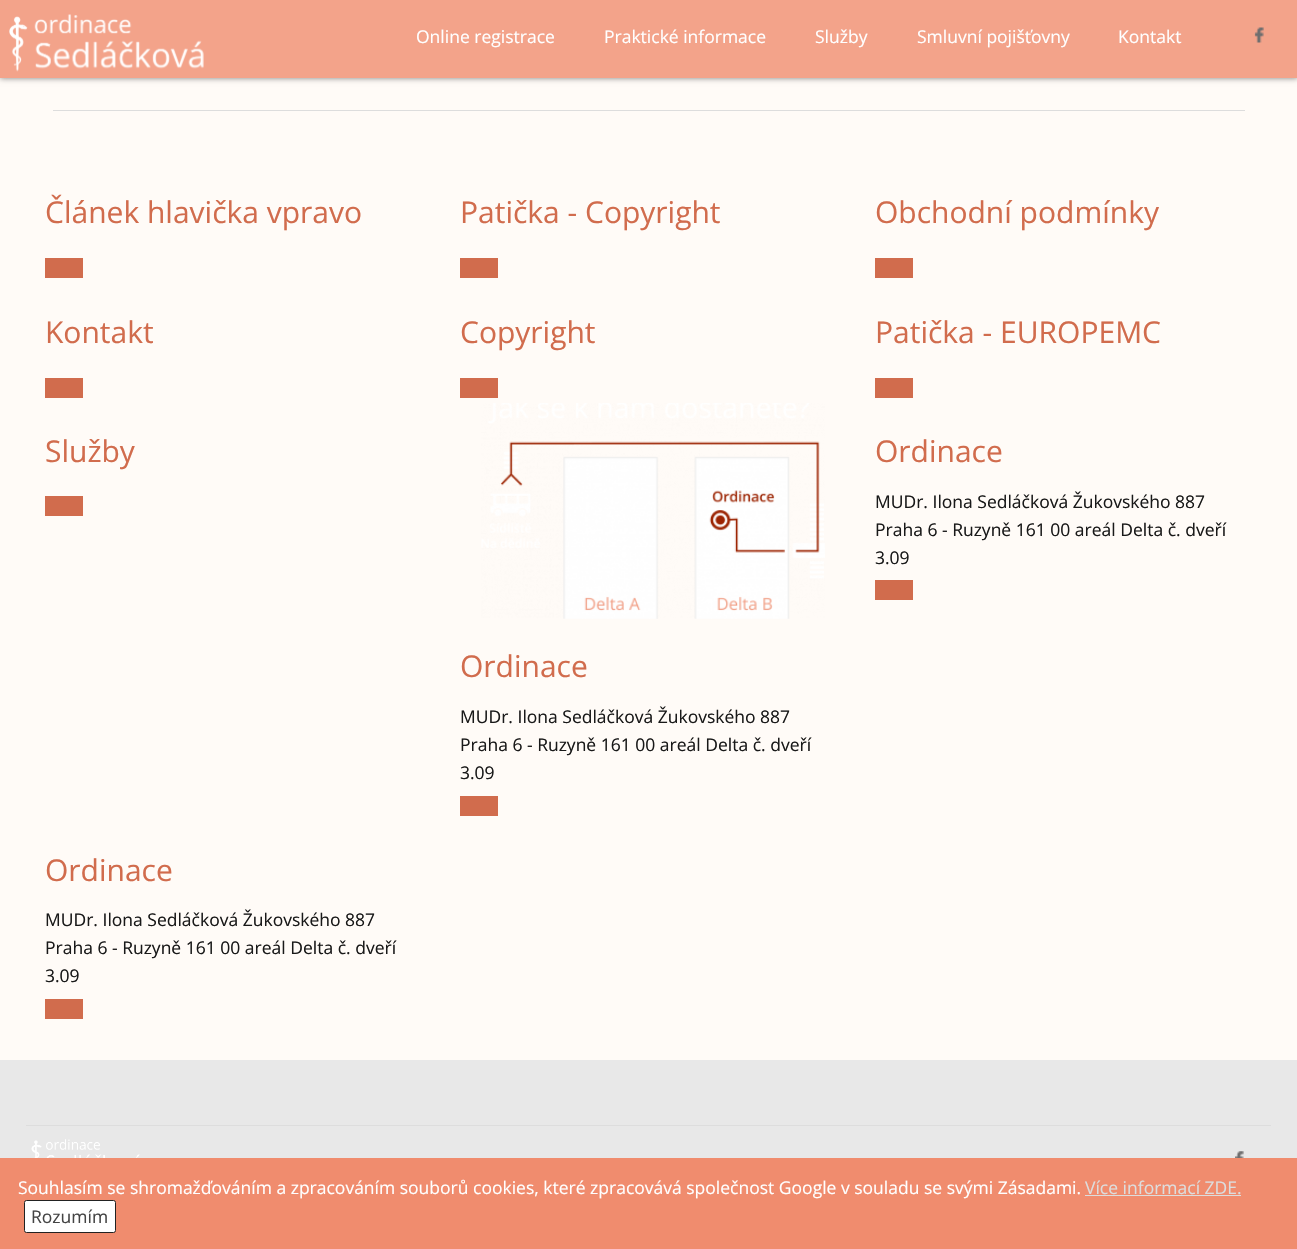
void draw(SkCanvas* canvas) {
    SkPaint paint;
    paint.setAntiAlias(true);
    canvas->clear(0xFFFFFBF7);
    canvas->save();
    canvas->clipPath(SkPathBuilder(SkPathFillType::kEvenOdd).moveTo(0, 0).lineTo(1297, 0).lineTo(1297, 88).lineTo(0, 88).close().moveTo(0, 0).lineTo(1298, 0).lineTo(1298, 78).lineTo(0, 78).close().detach(), true);
    paint.setColor(0x80000000);
    paint.setMaskFilter(SkMaskFilter::MakeBlur(kNormal_SkBlurStyle, 3));
    canvas->drawRect(SkRect::MakeXYWH(0, 0, 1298, 78), paint);
    paint.setMaskFilter(nullptr);
    canvas->restore();
    paint.setColor(0xCCF08C6E);
    canvas->drawRect(SkRect::MakeXYWH(0, 0, 1297, 78), paint);
    canvas->drawImageRect(SkImages::DeferredFromEncodedData(SkData::MakeFromFileName("img1.png")), SkRect::MakeXYWH(9, 14, 195, 58), SkSamplingOptions());
    SkFont font1(fontMgr->matchFamilyStyle("Open Sans", SkFontStyle::Normal()), 17.5f);
    font1.setSubpixel(true);
    paint.setColor(0xFFFFFFFF);
    canvas->drawString("Online registrace", 416, 43, font1, paint);
    canvas->drawString("Praktické informace", 604, 43, font1, paint);
    canvas->drawString("Služby", 815, 43, font1, paint);
    canvas->drawString("Smluvní pojišťovny", 917, 43, font1, paint);
    canvas->drawString("Kontakt", 1118, 43, font1, paint);
    canvas->drawImageRect(SkImages::DeferredFromEncodedData(SkData::MakeFromFileName("img2.png")), SkRect::MakeXYWH(1254, 27, 10, 16), SkSamplingOptions());
    paint.setColor(0xFFDDDDDD);
    canvas->drawRect(SkRect::MakeXYWH(53, 110, 1192, 1), paint);
    SkFont font2(fontMgr->matchFamilyStyle("Open Sans", SkFontStyle::Normal()), 30);
    font2.setSubpixel(true);
    paint.setColor(0xFFD16C4D);
    canvas->drawString("Článek hlavička vpravo", 45, 223, font2, paint);
    canvas->drawRect(SkRect::MakeXYWH(45, 258, 38, 20), paint);
    canvas->drawString("Patička - Copyright", 460, 223, font2, paint);
    canvas->drawRect(SkRect::MakeXYWH(460, 258, 38, 20), paint);
    canvas->drawString("Obchodní podmínky", 875, 223, font2, paint);
    canvas->drawRect(SkRect::MakeXYWH(875, 258, 38, 20), paint);
    canvas->drawString("Kontakt", 45, 343, font2, paint);
    canvas->drawRect(SkRect::MakeXYWH(45, 378, 38, 20), paint);
    canvas->drawString("Copyright", 460, 343, font2, paint);
    canvas->drawRect(SkRect::MakeXYWH(460, 378, 38, 20), paint);
    canvas->drawString("Patička - EUROPEMC", 875, 343, font2, paint);
    canvas->drawRect(SkRect::MakeXYWH(875, 378, 38, 20), paint);
    canvas->drawString("Služby", 45, 462, font2, paint);
    canvas->drawRect(SkRect::MakeXYWH(45, 496, 38, 20), paint);
    canvas->drawString("Ordinace", 875, 462, font2, paint);
    paint.setColor(0xFF191919);
    canvas->drawString("MUDr. Ilona Sedláčková Žukovského 887", 875, 508, font1, paint);
    canvas->drawString("Praha 6 - Ruzyně 161 00 areál Delta č. dveří", 875, 536, font1, paint);
    canvas->drawString("3.09", 875, 564, font1, paint);
    paint.setColor(0xFFD16C4D);
    canvas->drawRect(SkRect::MakeXYWH(875, 580, 38, 20), paint);
    canvas->drawImageRect(SkImages::DeferredFromEncodedData(SkData::MakeFromFileName("img3.png")), SkRect::MakeXYWH(481, 403, 344, 216), SkSamplingOptions());
    canvas->drawString("Ordinace", 460, 677, font2, paint);
    paint.setColor(0xFF191919);
    canvas->drawString("MUDr. Ilona Sedláčková Žukovského 887", 460, 723, font1, paint);
    canvas->drawString("Praha 6 - Ruzyně 161 00 areál Delta č. dveří", 460, 751, font1, paint);
    canvas->drawString("3.09", 460, 779, font1, paint);
    paint.setColor(0xFFD16C4D);
    canvas->drawRect(SkRect::MakeXYWH(460, 796, 38, 20), paint);
    canvas->drawString("Ordinace", 45, 881, font2, paint);
    paint.setColor(0xFF191919);
    canvas->drawString("MUDr. Ilona Sedláčková Žukovského 887", 45, 926, font1, paint);
    canvas->drawString("Praha 6 - Ruzyně 161 00 areál Delta č. dveří", 45, 954, font1, paint);
    canvas->drawString("3.09", 45, 982, font1, paint);
    paint.setColor(0xFFD16C4D);
    canvas->drawRect(SkRect::MakeXYWH(45, 999, 38, 20), paint);
    paint.setColor(0xFFE8E8E8);
    canvas->drawRect(SkRect::MakeXYWH(0, 1060, 1297, 98), paint);
    paint.setColor(0xFFDDDDDD);
    canvas->drawRect(SkRect::MakeXYWH(26, 1125, 1245, 1), paint);
    canvas->drawImageRect(SkImages::DeferredFromEncodedData(SkData::MakeFromFileName("img4.png")), SkRect::MakeXYWH(31, 1139, 109, 19), SkSamplingOptions());
    canvas->drawImageRect(SkImages::DeferredFromEncodedData(SkData::MakeFromFileName("img5.png")), SkRect::MakeXYWH(1235, 1151, 9, 7), SkSamplingOptions());
    paint.setColor(0xFFF08C6E);
    canvas->drawRect(SkRect::MakeXYWH(0, 1158, 1297, 91), paint);
    paint.setColor(0xFFFFFFFF);
    canvas->drawString("Souhlasím se shromažďováním a zpracováním souborů cookies, které zpracovává společnost Google v souladu se svými Zásadami.", 18, 1194, font1, paint);
    paint.setColor(0xFFDDDDDD);
    canvas->drawString("Více informací ZDE.", 1085, 1194, font1, paint);
    canvas->drawRect(SkRect::MakeXYWH(1085, 1195, 156, 1), paint);
    paint.setColor(0xFFFFFFFF);
    canvas->drawRoundRect(SkRect::MakeXYWH(24.5f, 1200.5f, 91, 32), 2, 2, paint);
    paint.setStyle(SkPaint::kStroke_Style);
    paint.setStrokeWidth(1);
    paint.setColor(0xFF222222);
    canvas->drawRoundRect(SkRect::MakeXYWH(24.5f, 1200.5f, 91, 32), 2, 2, paint);
    paint.setStyle(SkPaint::kFill_Style);
    paint.setColor(0xFF444444);
    canvas->drawString("Rozumím", 31, 1223, font1, paint);
}
